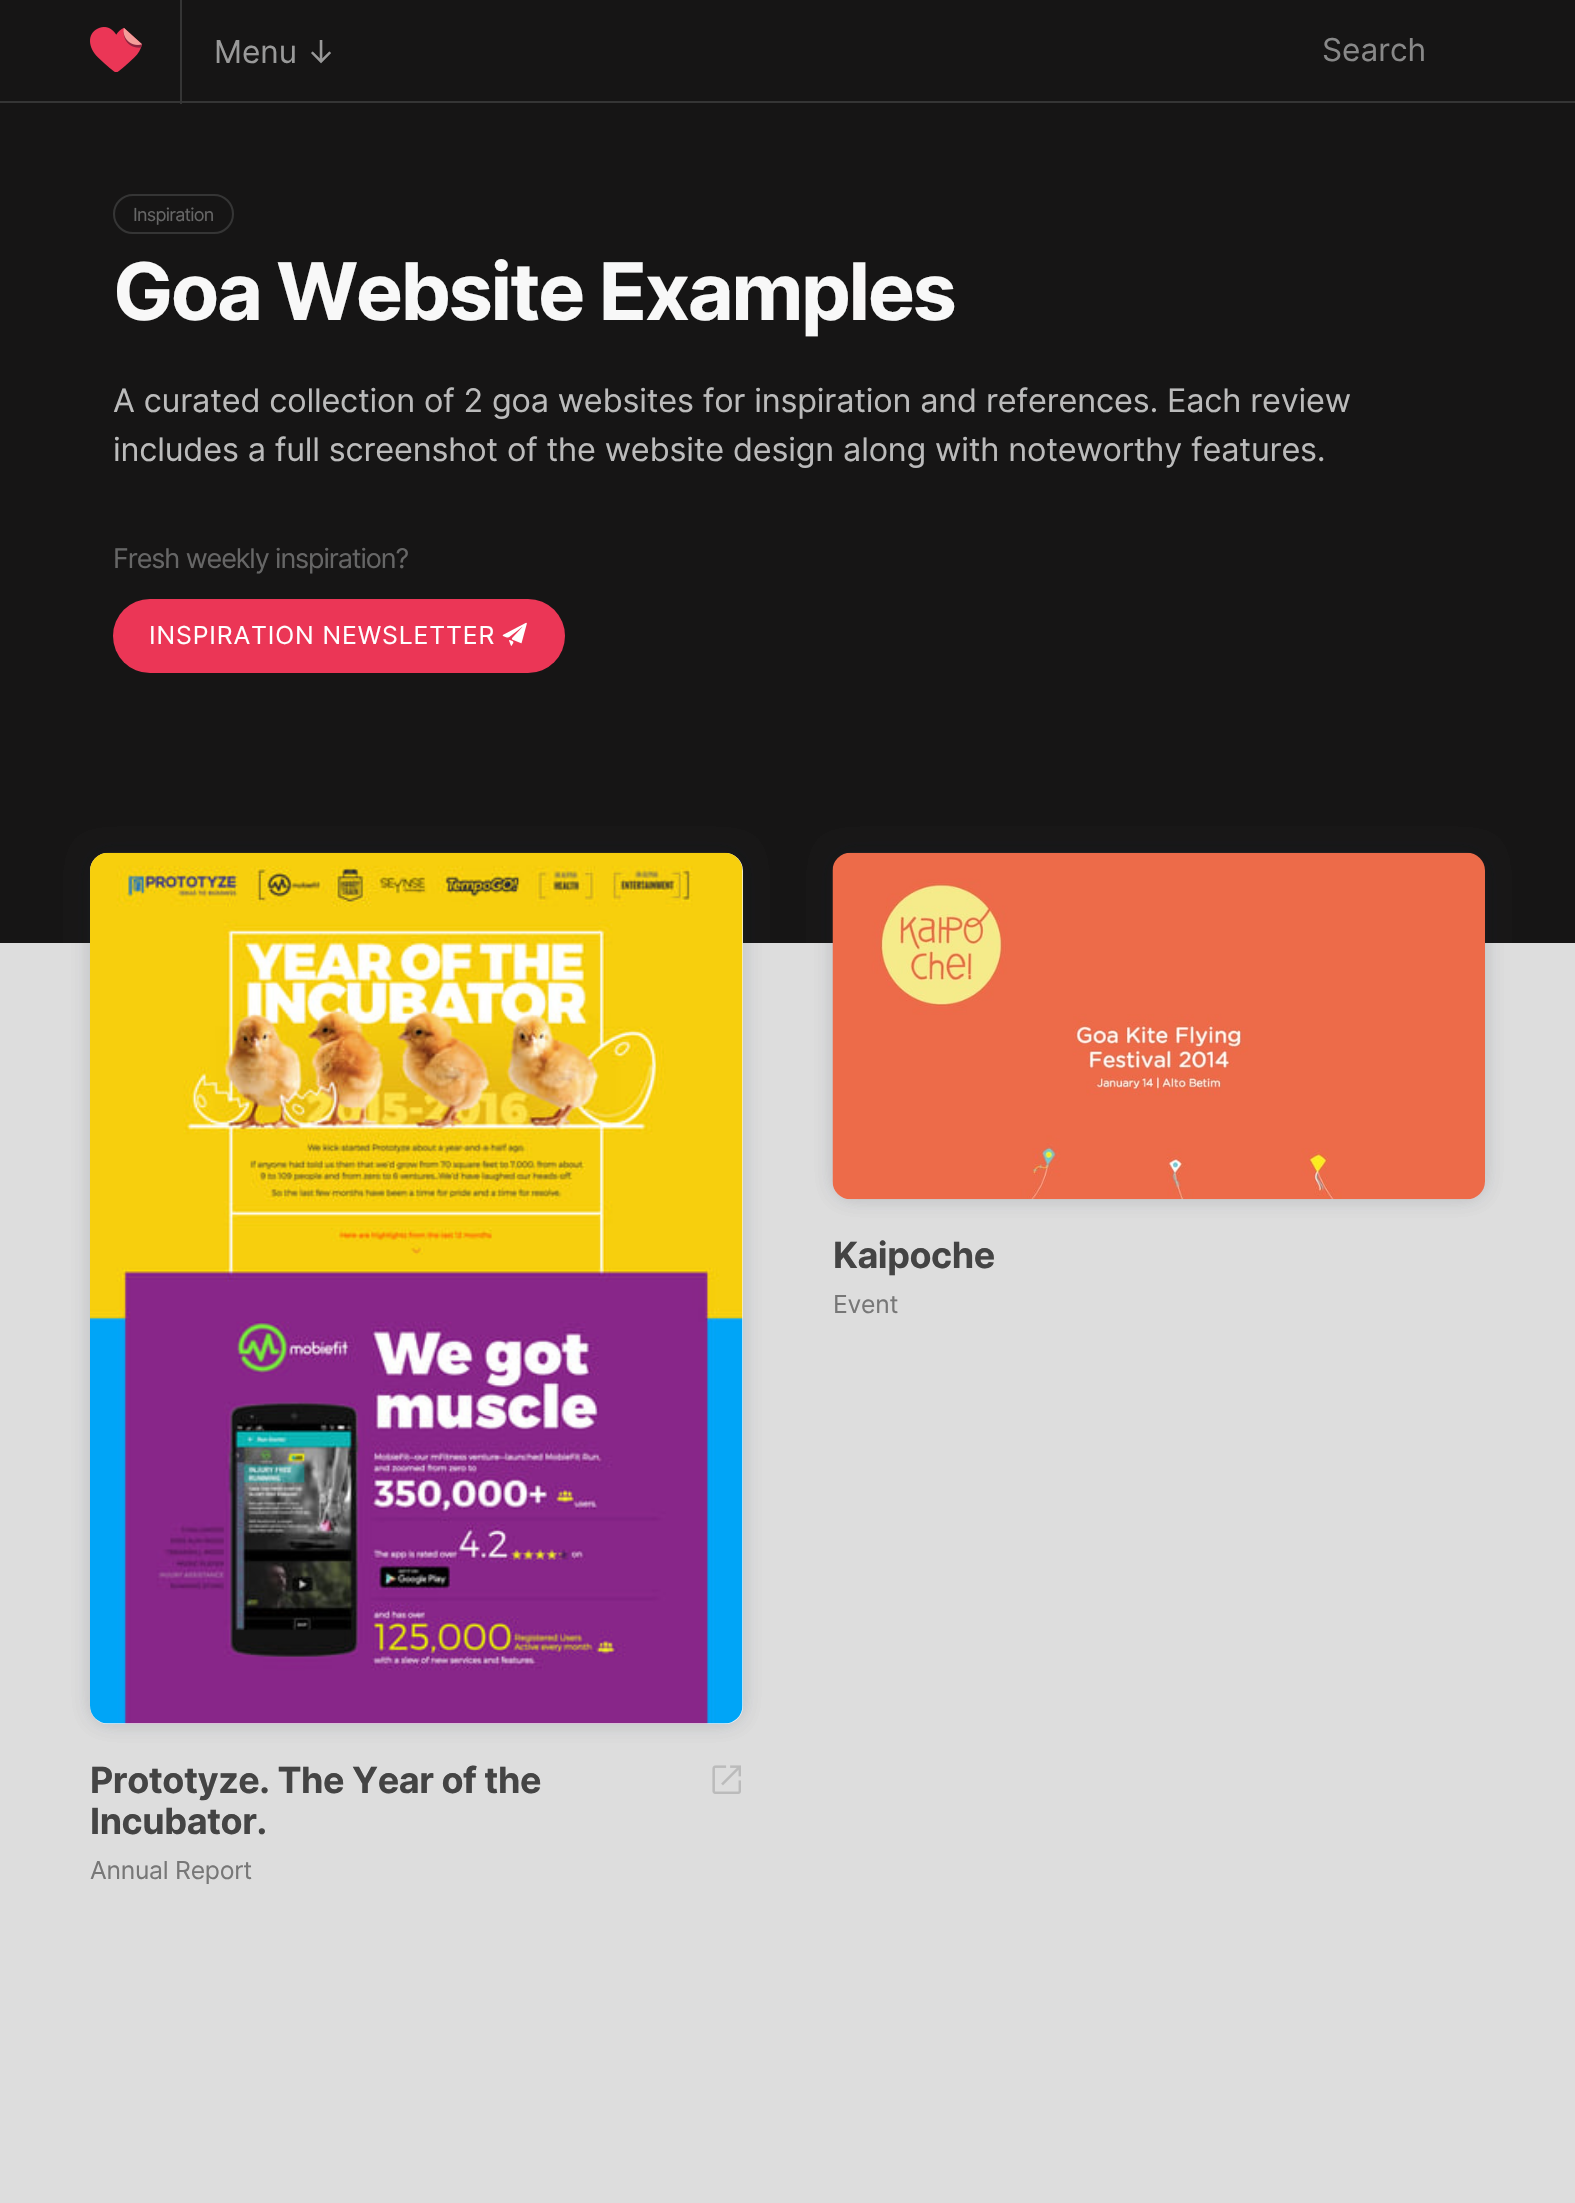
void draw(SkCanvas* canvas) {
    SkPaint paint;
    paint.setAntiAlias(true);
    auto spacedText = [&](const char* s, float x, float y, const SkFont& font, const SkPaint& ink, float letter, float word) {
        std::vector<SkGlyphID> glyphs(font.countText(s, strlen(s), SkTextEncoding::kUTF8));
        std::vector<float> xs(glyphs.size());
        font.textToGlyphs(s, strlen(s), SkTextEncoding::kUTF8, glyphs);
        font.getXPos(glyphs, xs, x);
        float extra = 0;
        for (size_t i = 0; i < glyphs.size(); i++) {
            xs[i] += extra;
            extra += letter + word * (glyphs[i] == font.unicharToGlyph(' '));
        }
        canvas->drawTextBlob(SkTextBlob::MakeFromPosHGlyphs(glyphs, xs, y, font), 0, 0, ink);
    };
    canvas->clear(0xFFDDDDDD);
    paint.setColor(0xFF161515);
    canvas->drawRect(SkRect::MakeXYWH(0, 0, 1575, 943), paint);
    paint.setColor(0xFF353535);
    canvas->drawRect(SkRect::MakeXYWH(0, 101, 1575, 2), paint);
    canvas->drawImageRect(SkImages::DeferredFromEncodedData(SkData::MakeFromFileName("img1.png")), SkRect::MakeXYWH(90, 27, 52, 45), SkSamplingOptions());
    canvas->drawRect(SkRect::MakeXYWH(180, 0, 2, 104), paint);
    SkFont font1(fontMgr->matchFamilyStyle("Inter", SkFontStyle::Normal()), 31.5f);
    font1.setSubpixel(true);
    paint.setColor(0xFF999999);
    canvas->drawString("Menu ↓", 214, 63, font1, paint);
    paint.setColor(0xFF888888);
    canvas->drawString("Search", 1322, 61, font1, paint);
    paint.setStyle(SkPaint::kStroke_Style);
    paint.setStrokeWidth(2);
    paint.setColor(0xFF353535);
    canvas->drawRoundRect(SkRect::MakeXYWH(114, 195, 119, 38), 19, 19, paint);
    SkFont font2(fontMgr->matchFamilyStyle("Inter", SkFontStyle::Normal()), 18);
    font2.setSubpixel(true);
    paint.setStyle(SkPaint::kFill_Style);
    paint.setColor(0xFF666666);
    spacedText("Inspiration", 133, 221, font2, paint, -0.75f, 0);
    SkFont font3(fontMgr->matchFamilyStyle("Inter", SkFontStyle::Bold()), 79.25f);
    font3.setSubpixel(true);
    paint.setColor(0xFFF8F8F8);
    spacedText("Goa Website Examples", 113, 320, font3, paint, -2.5f, 0);
    SkFont font4(fontMgr->matchFamilyStyle("Inter", SkFontStyle::Normal()), 32.4f);
    font4.setSubpixel(true);
    paint.setColor(0xFFBBBBBB);
    spacedText("A curated collection of 2 goa websites for inspiration and references. Each review", 113, 412, font4, paint, -0.18f, 0);
    spacedText("includes a full screenshot of the website design along with noteworthy features.", 113, 461, font4, paint, -0.18f, 0);
    SkFont font5(fontMgr->matchFamilyStyle("Inter", SkFontStyle::Normal()), 27);
    font5.setSubpixel(true);
    paint.setColor(0xFF666666);
    spacedText("Fresh weekly inspiration?", 113, 568, font5, paint, -1.1f, 0);
    paint.setColor(0xFFEB3656);
    canvas->drawRoundRect(SkRect::MakeXYWH(113, 599, 452, 74), 37, 37, paint);
    SkFont font6(fontMgr->matchFamilyStyle("Inter", SkFontStyle::Normal()), 24.75f);
    font6.setSubpixel(true);
    paint.setColor(0xFFFFFFFF);
    spacedText("INSPIRATION NEWSLETTER", 149, 644, font6, paint, 0.9f, 0);
    canvas->drawImageRect(SkImages::DeferredFromEncodedData(SkData::MakeFromFileName("img2.png")), SkRect::MakeXYWH(502, 622, 25, 24), SkSamplingOptions());
    paint.setColor(0x1A273141);
    paint.setMaskFilter(SkMaskFilter::MakeBlur(kNormal_SkBlurStyle, 11));
    canvas->drawRoundRect(SkRect::MakeXYWH(833, 853, 652, 346), 18, 18, paint);
    paint.setMaskFilter(nullptr);
    paint.setMaskFilter(SkMaskFilter::MakeBlur(kNormal_SkBlurStyle, 11));
    canvas->drawRoundRect(SkRect::MakeXYWH(833, 853, 652, 346), 18, 18, paint);
    paint.setMaskFilter(nullptr);
    canvas->drawImageRect(SkImages::DeferredFromEncodedData(SkData::MakeFromFileName("img3.png")), SkRect::MakeXYWH(832, 852, 653, 348), SkSamplingOptions());
    SkFont font7(fontMgr->matchFamilyStyle("Inter", SkFontStyle::Bold()), 36);
    font7.setSubpixel(true);
    paint.setColor(0xFF444444);
    spacedText("Kaipoche", 833, 1268, font7, paint, -0.45f, 0);
    paint.setColor(0xFF777777);
    spacedText("Event", 833, 1313, font6, paint, -0.25f, 0);
    paint.setColor(0x1A273141);
    paint.setMaskFilter(SkMaskFilter::MakeBlur(kNormal_SkBlurStyle, 11));
    canvas->drawRoundRect(SkRect::MakeXYWH(90, 853, 653, 871), 18, 18, paint);
    paint.setMaskFilter(nullptr);
    paint.setColor(0xFFFFFFFF);
    canvas->drawRoundRect(SkRect::MakeXYWH(90, 853, 653, 871), 18, 18, paint);
    paint.setColor(0x1A273141);
    paint.setMaskFilter(SkMaskFilter::MakeBlur(kNormal_SkBlurStyle, 11));
    canvas->drawRoundRect(SkRect::MakeXYWH(90, 853, 653, 871), 18, 18, paint);
    paint.setMaskFilter(nullptr);
    canvas->drawImageRect(SkImages::DeferredFromEncodedData(SkData::MakeFromFileName("img4.png")), SkRect::MakeXYWH(90, 852, 653, 872), SkSamplingOptions());
    paint.setColor(0xFF444444);
    spacedText("Prototyze. The Year of the", 90, 1793, font7, paint, -0.45f, 0);
    spacedText("Incubator.", 90, 1834, font7, paint, -0.45f, 0);
    canvas->drawImageRect(SkImages::DeferredFromEncodedData(SkData::MakeFromFileName("img5.png")), SkRect::MakeXYWH(712, 1765, 29, 29), SkSamplingOptions());
    paint.setColor(0xFF777777);
    spacedText("Annual Report", 90, 1879, font6, paint, -0.25f, 0);
}
